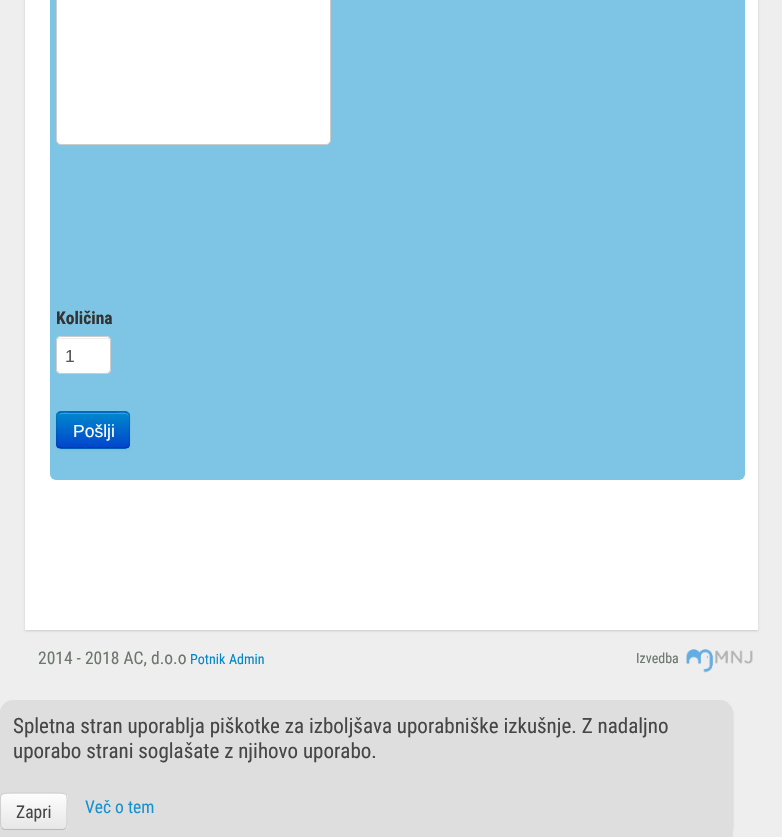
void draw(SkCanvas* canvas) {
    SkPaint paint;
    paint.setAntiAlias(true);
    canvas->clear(0xFFEEEEEE);
    paint.setColor(0x26000000);
    paint.setMaskFilter(SkMaskFilter::MakeBlur(kNormal_SkBlurStyle, 1));
    canvas->drawRect(SkRect::MakeXYWH(25, -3, 733, 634), paint);
    paint.setMaskFilter(nullptr);
    paint.setColor(0xFFFFFFFF);
    canvas->drawRect(SkRect::MakeXYWH(25, 0, 733, 630), paint);
    paint.setColor(0xFF7EC4E5);
    canvas->drawRoundRect(SkRect::MakeXYWH(50, -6, 695, 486), 6, 6, paint);
    paint.setColor(0xFFFFFFFF);
    canvas->drawRoundRect(SkRect::MakeXYWH(56.5f, -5.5f, 274, 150), 4.5f, 4.5f, paint);
    paint.setStyle(SkPaint::kStroke_Style);
    paint.setStrokeWidth(1);
    paint.setColor(0xFFCCCCCC);
    canvas->drawRoundRect(SkRect::MakeXYWH(56.5f, -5.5f, 274, 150), 4.5f, 4.5f, paint);
    SkFont font1(fontMgr->matchFamilyStyle("Roboto Condensed", SkFontStyle::Bold()), 17.5f);
    font1.setSubpixel(true);
    paint.setStyle(SkPaint::kFill_Style);
    paint.setColor(0xFF333333);
    canvas->drawString("Količina", 56, 324, font1, paint);
    paint.setColor(0xFFFFFFFF);
    canvas->drawRoundRect(SkRect::MakeXYWH(56, 336, 55, 38), 5, 5, paint);
    paint.setColor(0xFFECECEC);
    canvas->drawPath(SkPathBuilder().moveTo(61, 339).lineTo(106, 339).cubicTo(108, 339, 110, 340, 110, 342).cubicTo(110, 340, 108, 338, 106, 338).lineTo(62, 338).cubicTo(61, 338, 59, 339, 59, 340).close().detach(), paint);
    paint.setStyle(SkPaint::kStroke_Style);
    paint.setColor(0xFFCCCCCC);
    canvas->drawRoundRect(SkRect::MakeXYWH(56.5f, 336.5f, 54, 37), 4.5f, 4.5f, paint);
    SkFont font2(fontMgr->matchFamilyStyle("Liberation Sans", SkFontStyle::Normal()), 17.5f);
    font2.setSubpixel(true);
    paint.setStyle(SkPaint::kFill_Style);
    paint.setColor(0xFF555555);
    canvas->drawString("1", 65, 362, font2, paint);
    paint.setColor(0x0D000000);
    paint.setMaskFilter(SkMaskFilter::MakeBlur(kNormal_SkBlurStyle, 1));
    canvas->drawRoundRect(SkRect::MakeXYWH(56, 413, 74, 37), 5, 5, paint);
    paint.setMaskFilter(nullptr);
    paint.setColor(0xFF006DCC);
    canvas->drawRoundRect(SkRect::MakeXYWH(56, 411, 74, 38), 5, 5, paint);
    canvas->save();
    canvas->clipPath(SkPathBuilder().moveTo(61, 411).lineTo(125, 411).cubicTo(128, 411, 130, 413, 130, 416).lineTo(130, 444).cubicTo(130, 447, 128, 449, 125, 449).lineTo(61, 449).cubicTo(58, 449, 56, 447, 56, 444).lineTo(56, 416).cubicTo(56, 413, 58, 411, 61, 411).close().detach(), true);
    {
        const SkColor colors[] = {0xFF0088CC, 0xFF0044CC};
        const float stops[] = {0, 1};
        const SkPoint ends[] = {{93, 413}, {93, 448}};
        paint.setShader(SkGradientShader::MakeLinear(ends, colors, stops, 2, SkTileMode::kClamp));
        paint.setAlpha(255);
    }
    canvas->drawRect(SkRect::MakeXYWH(56, 413, 74, 35), paint);
    canvas->restore();
    paint.setShader(nullptr);
    paint.setColor(0x33FFFFFF);
    canvas->drawPath(SkPathBuilder().moveTo(61, 414).lineTo(125, 414).cubicTo(127, 414, 129, 415, 129, 418).cubicTo(129, 410, 120, 413, 114, 413).lineTo(72, 413).cubicTo(67, 413, 58, 410, 58, 418).cubicTo(58, 415, 59, 414, 61, 414).close().detach(), paint);
    paint.setStyle(SkPaint::kStroke_Style);
    paint.setStrokeWidth(1.2f);
    paint.setColor(0x40000000);
    canvas->drawPath(SkPathBuilder().moveTo(128, 447).lineTo(125.5f, 448).lineTo(61, 448).lineTo(58, 447).detach(), paint);
    paint.setColor(0x1A000000);
    canvas->drawPath(SkPathBuilder().moveTo(58, 447).cubicTo(56, 445, 57, 441.5f, 57, 439).lineTo(57, 430).cubicTo(57, 411, 53.5f, 412, 72, 412).lineTo(114.5f, 412).cubicTo(133, 412, 129.5f, 411, 129.5f, 430).lineTo(129.5f, 439).cubicTo(129.5f, 441.5f, 130, 445, 128, 447).detach(), paint);
    paint.setStyle(SkPaint::kFill_Style);
    paint.setColor(0xFFFFFFFF);
    canvas->drawString("Pošlji", 73, 437, font2, paint);
    SkFont font3(fontMgr->matchFamilyStyle("Roboto Condensed", SkFontStyle::Normal()), 17.5f);
    font3.setSubpixel(true);
    paint.setColor(0xFF6C776D);
    canvas->drawString("2014 - 2018 AC, d.o.o", 38, 664, font3, paint);
    SkFont font4(fontMgr->matchFamilyStyle("Roboto Condensed", SkFontStyle::Normal()), 14);
    font4.setSubpixel(true);
    paint.setColor(0xFF0088CC);
    canvas->drawString("Potnik", 190, 664, font4, paint);
    canvas->drawString("Admin", 229, 664, font4, paint);
    paint.setColor(0xFF6C776D);
    canvas->drawString("Izvedba", 636, 663, font4, paint);
    canvas->drawImageRect(SkImages::DeferredFromEncodedData(SkData::MakeFromFileName("img1.png")), SkRect::MakeXYWH(686, 649, 67, 24), SkSamplingOptions());
    paint.setColor(0x33181818);
    paint.setMaskFilter(SkMaskFilter::MakeBlur(kNormal_SkBlurStyle, 1));
    canvas->drawRoundRect(SkRect::MakeXYWH(0, 703, 733, 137), 13, 13, paint);
    paint.setMaskFilter(nullptr);
    paint.setColor(0xFFDEDEDE);
    canvas->drawPath(SkPathBuilder().moveTo(13, 700).lineTo(720, 700).cubicTo(727, 700, 733, 706, 733, 713).lineTo(733, 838).lineTo(0, 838).lineTo(0, 713).cubicTo(0, 706, 6, 700, 13, 700).close().detach(), paint);
    SkFont font5(fontMgr->matchFamilyStyle("Roboto Condensed", SkFontStyle::Normal()), 21);
    font5.setSubpixel(true);
    paint.setColor(0xFF464646);
    canvas->drawString("Spletna stran uporablja piškotke za izboljšava uporabniške izkušnje. Z nadaljno", 13, 733, font5, paint);
    canvas->drawString("uporabo strani soglašate z njihovo uporabo.", 13, 758, font5, paint);
    paint.setColor(0xFFF4F4F4);
    canvas->drawRoundRect(SkRect::MakeXYWH(0, 793, 68, 37), 5, 5, paint);
    canvas->save();
    canvas->clipPath(SkPathBuilder().moveTo(5, 793).lineTo(63, 793).cubicTo(66, 793, 68, 795, 68, 798).lineTo(68, 825).cubicTo(68, 828, 66, 830, 63, 830).lineTo(5, 830).cubicTo(2, 830, 0, 828, 0, 825).lineTo(0, 798).cubicTo(0, 795, 2, 793, 5, 793).close().detach(), true);
    {
        const SkColor colors[] = {0xFFFDFDFD, 0xFFE7E7E7};
        const float stops[] = {0, 1};
        const SkPoint ends[] = {{34, 794}, {34, 829}};
        paint.setShader(SkGradientShader::MakeLinear(ends, colors, stops, 2, SkTileMode::kClamp));
        paint.setAlpha(255);
    }
    canvas->drawRect(SkRect::MakeXYWH(0, 794, 68, 35), paint);
    canvas->restore();
    paint.setStyle(SkPaint::kStroke_Style);
    paint.setShader(nullptr);
    paint.setColor(0xFFB9B9B9);
    canvas->drawPath(SkPathBuilder().moveTo(65.5f, 828).cubicTo(65, 829, 63.5f, 829.5f, 62.5f, 829.5f).lineTo(5, 829.5f).cubicTo(4, 829.5f, 2.5f, 829, 2, 828).detach(), paint);
    paint.setColor(0xFFCFCFCF);
    canvas->drawPath(SkPathBuilder().moveTo(2, 828).cubicTo(0, 826, 0.5f, 823, 0.5f, 820.5f).lineTo(0.5f, 811).cubicTo(0.5f, 793, -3, 793, 14.5f, 793).lineTo(53, 793).cubicTo(70.5f, 793, 67, 793, 67, 811).lineTo(67, 820.5f).cubicTo(67, 823, 67.5f, 826, 65.5f, 828).detach(), paint);
    paint.setStyle(SkPaint::kFill_Style);
    paint.setColor(0xFF464646);
    canvas->drawString("Zapri", 16, 818, font3, paint);
    paint.setColor(0xFF1892CF);
    canvas->drawString("Več o tem", 85, 813, font3, paint);
}
